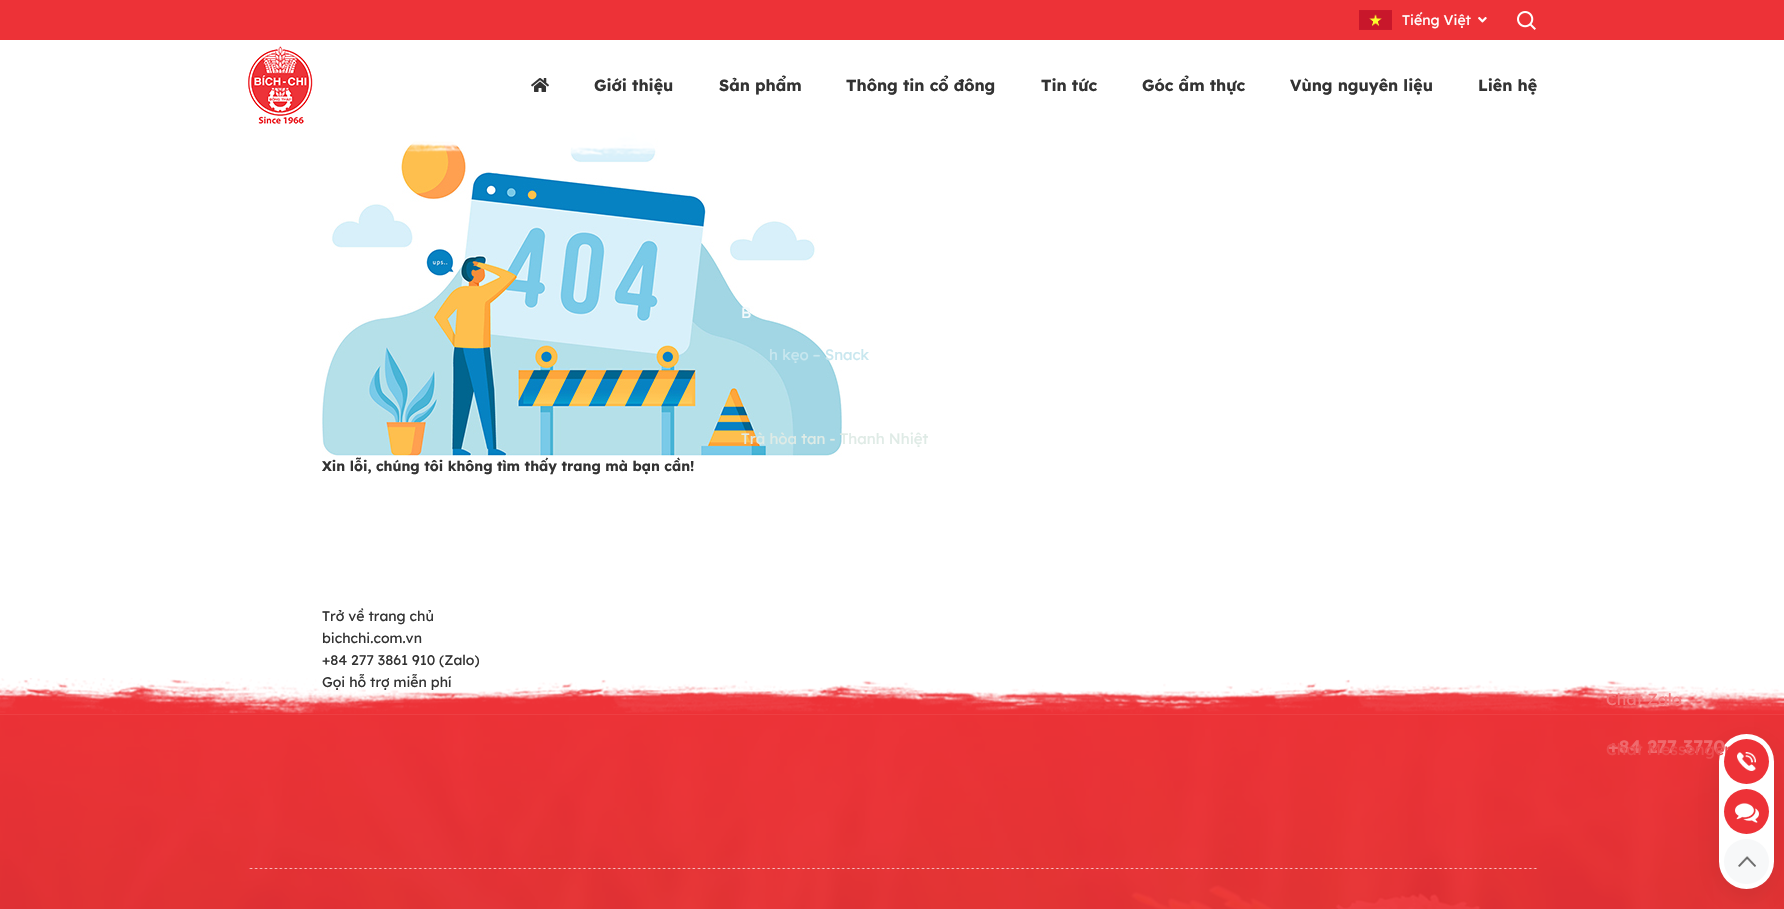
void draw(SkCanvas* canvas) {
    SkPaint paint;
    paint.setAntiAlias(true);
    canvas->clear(0xFFFFFFFF);
    paint.setColor(0xFFED3237);
    canvas->drawRect(SkRect::MakeXYWH(0, 0, 1784, 40), paint);
    canvas->drawImageRect(SkImages::DeferredFromEncodedData(SkData::MakeFromFileName("img1.png")), SkRect::MakeXYWH(1359, 10, 33, 20), SkSamplingOptions());
    SkFont font1(fontMgr->matchFamilyStyle("Lexend", SkFontStyle::Normal()), 14);
    font1.setSubpixel(true);
    paint.setColor(0xFFFFFFFF);
    canvas->drawString("Tiếng Việt", 1402, 25, font1, paint);
    canvas->drawImageRect(SkImages::DeferredFromEncodedData(SkData::MakeFromFileName("img2.png")), SkRect::MakeXYWH(1478, 17, 9, 6), SkSamplingOptions());
    canvas->drawImageRect(SkImages::DeferredFromEncodedData(SkData::MakeFromFileName("img3.png")), SkRect::MakeXYWH(1517, 11, 19, 19), SkSamplingOptions());
    canvas->drawImageRect(SkImages::DeferredFromEncodedData(SkData::MakeFromFileName("img7.png")), SkRect::MakeXYWH(322, 130, 520, 327), SkSamplingOptions());
    canvas->drawImageRect(SkImages::DeferredFromEncodedData(SkData::MakeFromFileName("img4.png")), SkRect::MakeXYWH(406, 130, 249, 28), SkSamplingOptions());
    canvas->drawImageRect(SkImages::DeferredFromEncodedData(SkData::MakeFromFileName("img5.png")), SkRect::MakeXYWH(248, 46, 65, 78), SkSamplingOptions());
    SkFont font2(fontMgr->matchFamilyStyle("Lexend", SkFontStyle::Bold()), 16);
    font2.setSubpixel(true);
    paint.setColor(0xFF333333);
    canvas->drawString("Sản phẩm", 719, 91, font2, paint);
    SkFont font3(fontMgr->matchFamilyStyle("Lexend", SkFontStyle::Normal()), 15);
    font3.setSubpixel(true);
    paint.setColor(0xFFF4FAFC);
    canvas->drawString("B", 741, 318, font3, paint);
    paint.setColor(0xFFC8E7EF);
    canvas->drawString("h kẹo – Snack", 769, 360, font3, paint);
    paint.setColor(0xFFDFEBE6);
    canvas->drawString("Trà hòa tan - Thanh Nhiệt", 741, 444, font3, paint);
    canvas->drawImageRect(SkImages::DeferredFromEncodedData(SkData::MakeFromFileName("img6.png")), SkRect::MakeXYWH(531, 78, 18, 14), SkSamplingOptions());
    paint.setColor(0xFF333333);
    canvas->drawString("Giới thiệu", 594, 91, font2, paint);
    canvas->drawString("Thông tin cổ đông", 846, 91, font2, paint);
    canvas->drawString("Tin tức", 1041, 91, font2, paint);
    canvas->drawString("Góc ẩm thực", 1142, 91, font2, paint);
    canvas->drawString("Vùng nguyên liệu", 1290, 91, font2, paint);
    canvas->drawString("Liên hệ", 1478, 91, font2, paint);
    SkFont font4(fontMgr->matchFamilyStyle("Lexend", SkFontStyle::Bold()), 14);
    font4.setSubpixel(true);
    canvas->drawString("Xin lỗi, chúng tôi không tìm thấy trang mà bạn cần!", 322, 471, font4, paint);
    canvas->drawString("Trở về trang chủ", 322, 621, font1, paint);
    canvas->drawString("bichchi.com.vn", 322, 643, font1, paint);
    canvas->drawString("+84 277 3861 910 (Zalo)", 322, 665, font1, paint);
    canvas->drawString("Gọi hỗ trợ miễn phí", 322, 687, font1, paint);
    canvas->drawImageRect(SkImages::DeferredFromEncodedData(SkData::MakeFromFileName("img8.png")), SkRect::MakeXYWH(0, 715, 1784, 194), SkSamplingOptions());
    canvas->drawImageRect(SkImages::DeferredFromEncodedData(SkData::MakeFromFileName("img9.png")), SkRect::MakeXYWH(0, 678, 1784, 37), SkSamplingOptions());
    canvas->drawImageRect(SkImages::DeferredFromEncodedData(SkData::MakeFromFileName("img10.png")), SkRect::MakeXYWH(249, 868, 1288, 1), SkSamplingOptions());
    paint.setColor(0x1A000000);
    paint.setMaskFilter(SkMaskFilter::MakeBlur(kNormal_SkBlurStyle, 15));
    canvas->drawRoundRect(SkRect::MakeXYWH(1719, 744, 55, 155), 27.5f, 27.5f, paint);
    paint.setMaskFilter(nullptr);
    paint.setColor(0xFFFFFFFF);
    canvas->drawRoundRect(SkRect::MakeXYWH(1719, 734, 55, 155), 27.5f, 27.5f, paint);
    SkFont font5(fontMgr->matchFamilyStyle("Lexend", SkFontStyle::Normal()), 16);
    font5.setSubpixel(true);
    paint.setColor(0xFFF37A7D);
    canvas->drawString("Chat Zalo", 1606, 705, font5, paint);
    SkFont font6(fontMgr->matchFamilyStyle("Lexend", SkFontStyle::Bold()), 18);
    font6.setSubpixel(true);
    paint.setColor(0xFFEF6A6D);
    canvas->drawString("+84 277 3770", 1608, 753, font6, paint);
    paint.setColor(0xFFEC4D50);
    canvas->drawString("Chat Messenger", 1606, 755, font5, paint);
    paint.setColor(0xFFED3237);
    canvas->drawCircle(1746.5f, 811.5f, 22.5f, paint);
    canvas->drawImageRect(SkImages::DeferredFromEncodedData(SkData::MakeFromFileName("img11.png")), SkRect::MakeXYWH(1735, 803, 24, 20), SkSamplingOptions());
    canvas->drawCircle(1746.5f, 761.5f, 22.5f, paint);
    canvas->drawImageRect(SkImages::DeferredFromEncodedData(SkData::MakeFromFileName("img12.png")), SkRect::MakeXYWH(1737, 752, 19, 19), SkSamplingOptions());
    paint.setColor(0xFFF7F8F9);
    canvas->drawCircle(1746.5f, 861.5f, 22.5f, paint);
    canvas->drawImageRect(SkImages::DeferredFromEncodedData(SkData::MakeFromFileName("img13.png")), SkRect::MakeXYWH(1738, 856, 18, 11), SkSamplingOptions());
}
